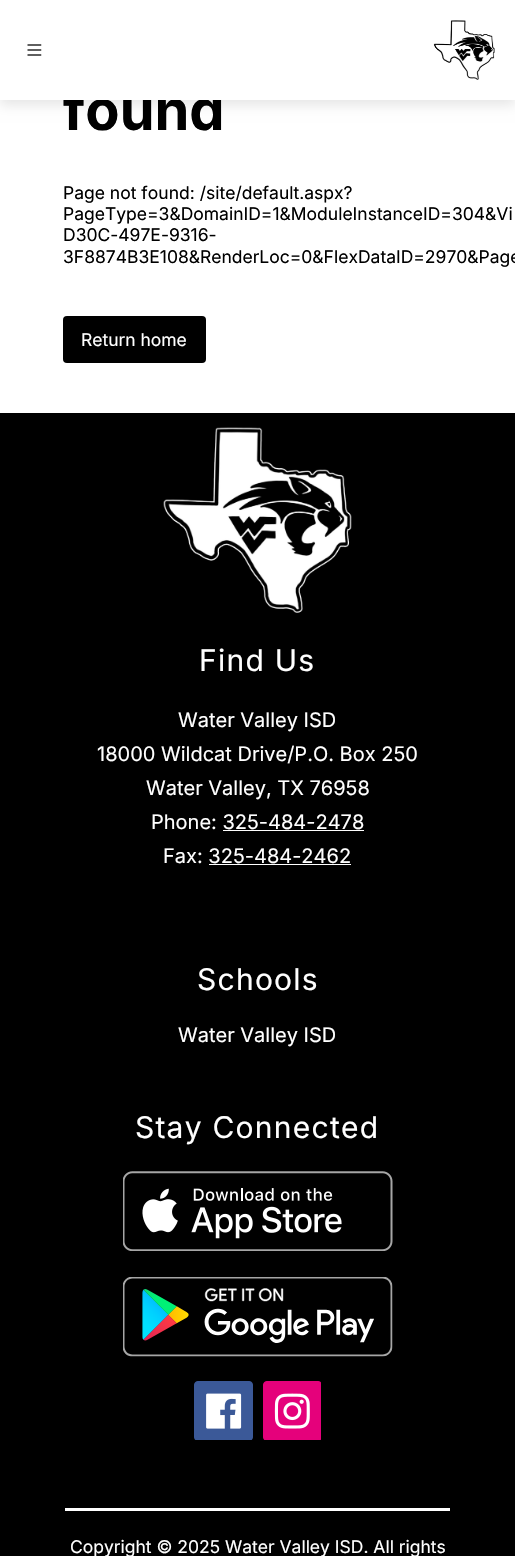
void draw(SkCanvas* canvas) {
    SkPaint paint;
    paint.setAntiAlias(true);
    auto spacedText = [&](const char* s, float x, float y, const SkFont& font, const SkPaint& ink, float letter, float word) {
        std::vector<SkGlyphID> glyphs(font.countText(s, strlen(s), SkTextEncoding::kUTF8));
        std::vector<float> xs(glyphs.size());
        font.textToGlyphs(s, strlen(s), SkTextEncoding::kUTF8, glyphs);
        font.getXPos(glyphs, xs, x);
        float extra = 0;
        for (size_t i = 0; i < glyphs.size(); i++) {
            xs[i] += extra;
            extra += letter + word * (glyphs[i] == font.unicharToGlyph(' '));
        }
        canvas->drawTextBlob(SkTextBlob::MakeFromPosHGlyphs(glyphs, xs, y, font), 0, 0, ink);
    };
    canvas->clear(0xFFFFFFFF);
    paint.setColor(0x1A000000);
    paint.setMaskFilter(SkMaskFilter::MakeBlur(kNormal_SkBlurStyle, 6));
    canvas->drawRect(SkRect::MakeXYWH(0, 5, 515, 100), paint);
    paint.setMaskFilter(nullptr);
    SkFont font1(fontMgr->matchFamilyStyle("Inter", SkFontStyle::Bold()), 56);
    font1.setSubpixel(true);
    paint.setColor(0xFF000000);
    canvas->drawString("found", 63, 130, font1, paint);
    paint.setColor(0xFFFFFFFF);
    canvas->drawRect(SkRect::MakeXYWH(0, 0, 515, 100), paint);
    canvas->drawImageRect(SkImages::DeferredFromEncodedData(SkData::MakeFromFileName("img1.png")), SkRect::MakeXYWH(27, 44, 15, 12), SkSamplingOptions());
    canvas->drawImageRect(SkImages::DeferredFromEncodedData(SkData::MakeFromFileName("img2.png")), SkRect::MakeXYWH(433, 20, 62, 60), SkSamplingOptions());
    SkFont font2(fontMgr->matchFamilyStyle("Inter", SkFontStyle::Normal()), 17.5f);
    font2.setSubpixel(true);
    paint.setColor(0xFF000000);
    canvas->drawString("Page not found: /site/default.aspx?", 63, 199, font2, paint);
    canvas->drawString("PageType=3&DomainID=1&ModuleInstanceID=304&Vi", 63, 220, font2, paint);
    canvas->drawString("D30C-497E-9316-", 63, 241, font2, paint);
    canvas->drawString("3F8874B3E108&RenderLoc=0&FlexDataID=2970&Page", 63, 263, font2, paint);
    canvas->drawRoundRect(SkRect::MakeXYWH(63, 316, 143, 47), 4, 4, paint);
    paint.setColor(0xFFFFFFFF);
    canvas->drawString("Return home", 81, 346, font2, paint);
    paint.setColor(0xFF000000);
    canvas->drawRect(SkRect::MakeXYWH(0, 413, 515, 1143), paint);
    canvas->drawImageRect(SkImages::DeferredFromEncodedData(SkData::MakeFromFileName("img3.png")), SkRect::MakeXYWH(163, 427, 189, 186), SkSamplingOptions());
    SkFont font3(fontMgr->matchFamilyStyle("Inter", SkFontStyle::Normal()), 30);
    font3.setSubpixel(true);
    paint.setColor(0xFFFFFFFF);
    spacedText("Find Us", 199, 671, font3, paint, 1.25f, 0);
    SkFont font4(fontMgr->matchFamilyStyle("Inter", SkFontStyle::Normal()), 20);
    font4.setSubpixel(true);
    canvas->drawString("Water Valley ISD", 178, 727, font4, paint);
    canvas->drawString("18000 Wildcat Drive/P.O. Box 250", 97, 761, font4, paint);
    canvas->drawString("Water Valley, TX 76958", 146, 795, font4, paint);
    canvas->drawString("Phone: 325-484-2478", 151, 829, font4, paint);
    canvas->drawRect(SkRect::MakeXYWH(223, 830, 141, 1), paint);
    canvas->drawString("Fax: 325-484-2462", 163, 863, font4, paint);
    canvas->drawRect(SkRect::MakeXYWH(209, 864, 142, 1), paint);
    spacedText("Schools", 197, 990, font3, paint, 1.25f, 0);
    canvas->drawString("Water Valley ISD", 178, 1042, font4, paint);
    spacedText("Stay Connected", 135, 1138, font3, paint, 1.25f, 0);
    canvas->drawImageRect(SkImages::DeferredFromEncodedData(SkData::MakeFromFileName("img4.png")), SkRect::MakeXYWH(123, 1171, 270, 80), SkSamplingOptions());
    canvas->drawImageRect(SkImages::DeferredFromEncodedData(SkData::MakeFromFileName("img5.png")), SkRect::MakeXYWH(123, 1277, 270, 80), SkSamplingOptions());
    canvas->drawImageRect(SkImages::DeferredFromEncodedData(SkData::MakeFromFileName("img6.png")), SkRect::MakeXYWH(194, 1381, 59, 59), SkSamplingOptions());
    canvas->drawImageRect(SkImages::DeferredFromEncodedData(SkData::MakeFromFileName("img7.png")), SkRect::MakeXYWH(263, 1381, 58, 59), SkSamplingOptions());
    canvas->drawRect(SkRect::MakeXYWH(65, 1508, 385, 3), paint);
    canvas->drawString("Copyright © 2025 Water Valley ISD. All rights", 70, 1553, font2, paint);
}
